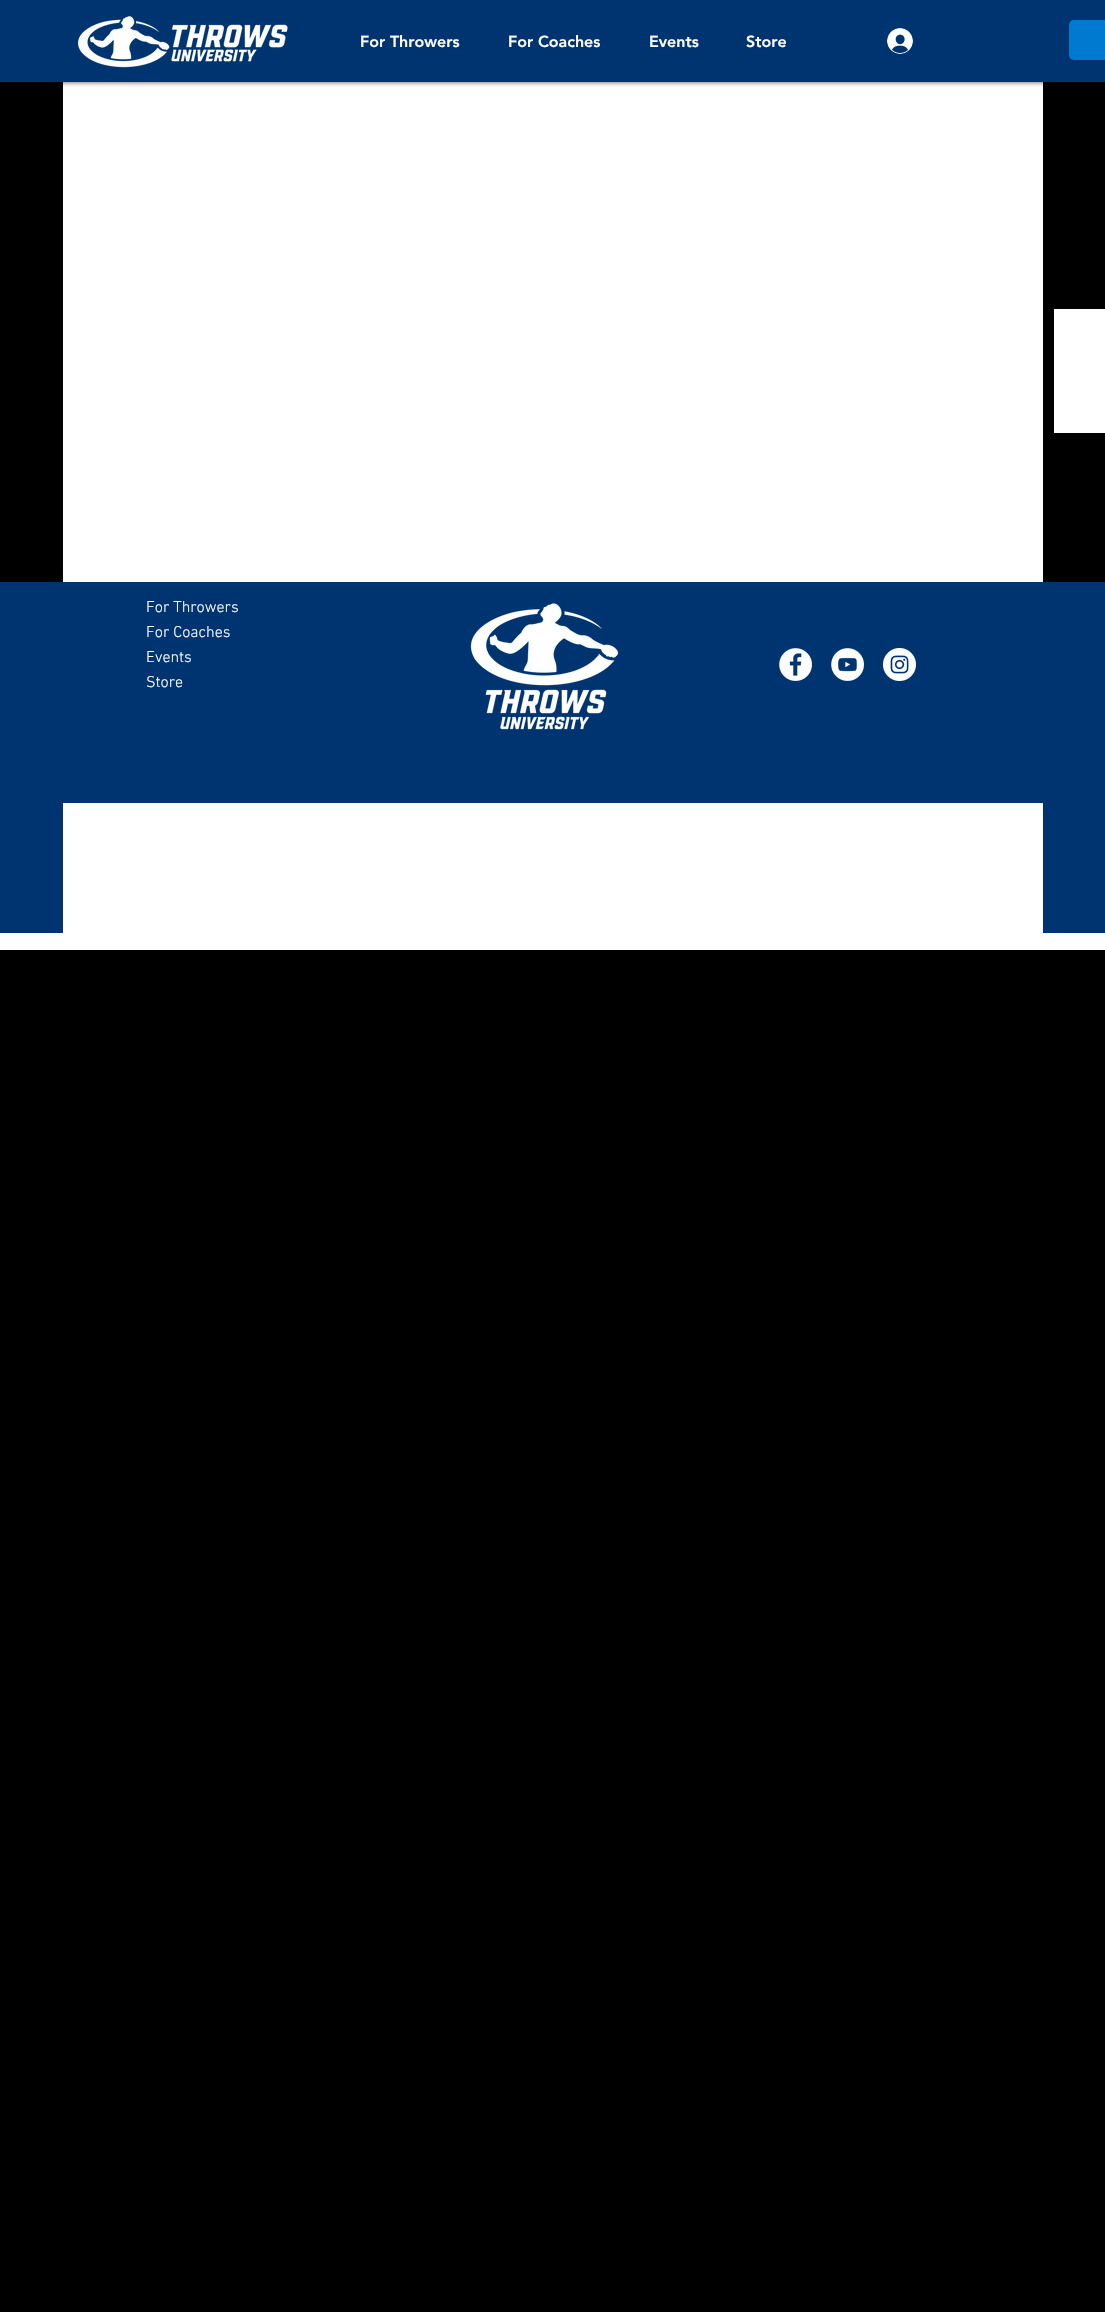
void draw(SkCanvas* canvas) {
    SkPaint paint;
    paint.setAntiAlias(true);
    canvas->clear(0xFF000000);
    paint.setColor(0xFFFFFFFF);
    canvas->drawRect(SkRect::MakeXYWH(63, 82, 980, 500), paint);
    paint.setColor(0xB3000000);
    paint.setMaskFilter(SkMaskFilter::MakeBlur(kNormal_SkBlurStyle, 2.5f));
    canvas->drawRect(SkRect::MakeXYWH(0, 0, 1105, 82), paint);
    paint.setMaskFilter(nullptr);
    paint.setColor(0xFF003470);
    canvas->drawRect(SkRect::MakeXYWH(0, 0, 1105, 82), paint);
    canvas->drawImageRect(SkImages::DeferredFromEncodedData(SkData::MakeFromFileName("img1.png")), SkRect::MakeXYWH(77, 16, 211, 52), SkSamplingOptions());
    SkFont font1(fontMgr->matchFamilyStyle("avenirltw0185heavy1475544", SkFontStyle(900, SkFontStyle::kNormal_Width, SkFontStyle::kUpright_Slant)), 16);
    font1.setSubpixel(true);
    paint.setColor(0xFFFFFFFF);
    canvas->drawString("For Throwers", 360, 47, font1, paint);
    canvas->drawString("For Coaches", 508, 47, font1, paint);
    canvas->drawString("Events", 649, 47, font1, paint);
    canvas->drawString("Store", 746, 47, font1, paint);
    canvas->drawImageRect(SkImages::DeferredFromEncodedData(SkData::MakeFromFileName("img2.png")), SkRect::MakeXYWH(887, 28, 26, 26), SkSamplingOptions());
    paint.setColor(0xFF007AD1);
    canvas->drawRoundRect(SkRect::MakeXYWH(1069, 20, 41, 40), 5, 5, paint);
    paint.setColor(0xFFFFFFFF);
    canvas->drawRect(SkRect::MakeXYWH(1054, 309, 51, 124), paint);
    paint.setColor(0xFF003470);
    canvas->drawRect(SkRect::MakeXYWH(0, 582, 1105, 351), paint);
    SkFont font2(fontMgr->matchFamilyStyle("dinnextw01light", SkFontStyle(300, SkFontStyle::kNormal_Width, SkFontStyle::kUpright_Slant)), 16);
    font2.setSubpixel(true);
    paint.setColor(0xFFFFFFFF);
    canvas->drawString("For Throwers", 146, 612, font2, paint);
    canvas->drawString("For Coaches", 146, 637, font2, paint);
    canvas->drawString("Events", 146, 662, font2, paint);
    canvas->drawString("Store", 146, 687, font2, paint);
    canvas->drawImageRect(SkImages::DeferredFromEncodedData(SkData::MakeFromFileName("img3.png")), SkRect::MakeXYWH(470, 603, 149, 127), SkSamplingOptions());
    canvas->drawImageRect(SkImages::DeferredFromEncodedData(SkData::MakeFromFileName("img4.png")), SkRect::MakeXYWH(779, 648, 33, 33), SkSamplingOptions());
    canvas->drawImageRect(SkImages::DeferredFromEncodedData(SkData::MakeFromFileName("img5.png")), SkRect::MakeXYWH(831, 648, 33, 33), SkSamplingOptions());
    canvas->drawImageRect(SkImages::DeferredFromEncodedData(SkData::MakeFromFileName("img6.png")), SkRect::MakeXYWH(883, 648, 33, 33), SkSamplingOptions());
    canvas->drawRect(SkRect::MakeXYWH(63, 803, 980, 130), paint);
    canvas->drawRect(SkRect::MakeXYWH(0, 933, 1105, 17), paint);
}
